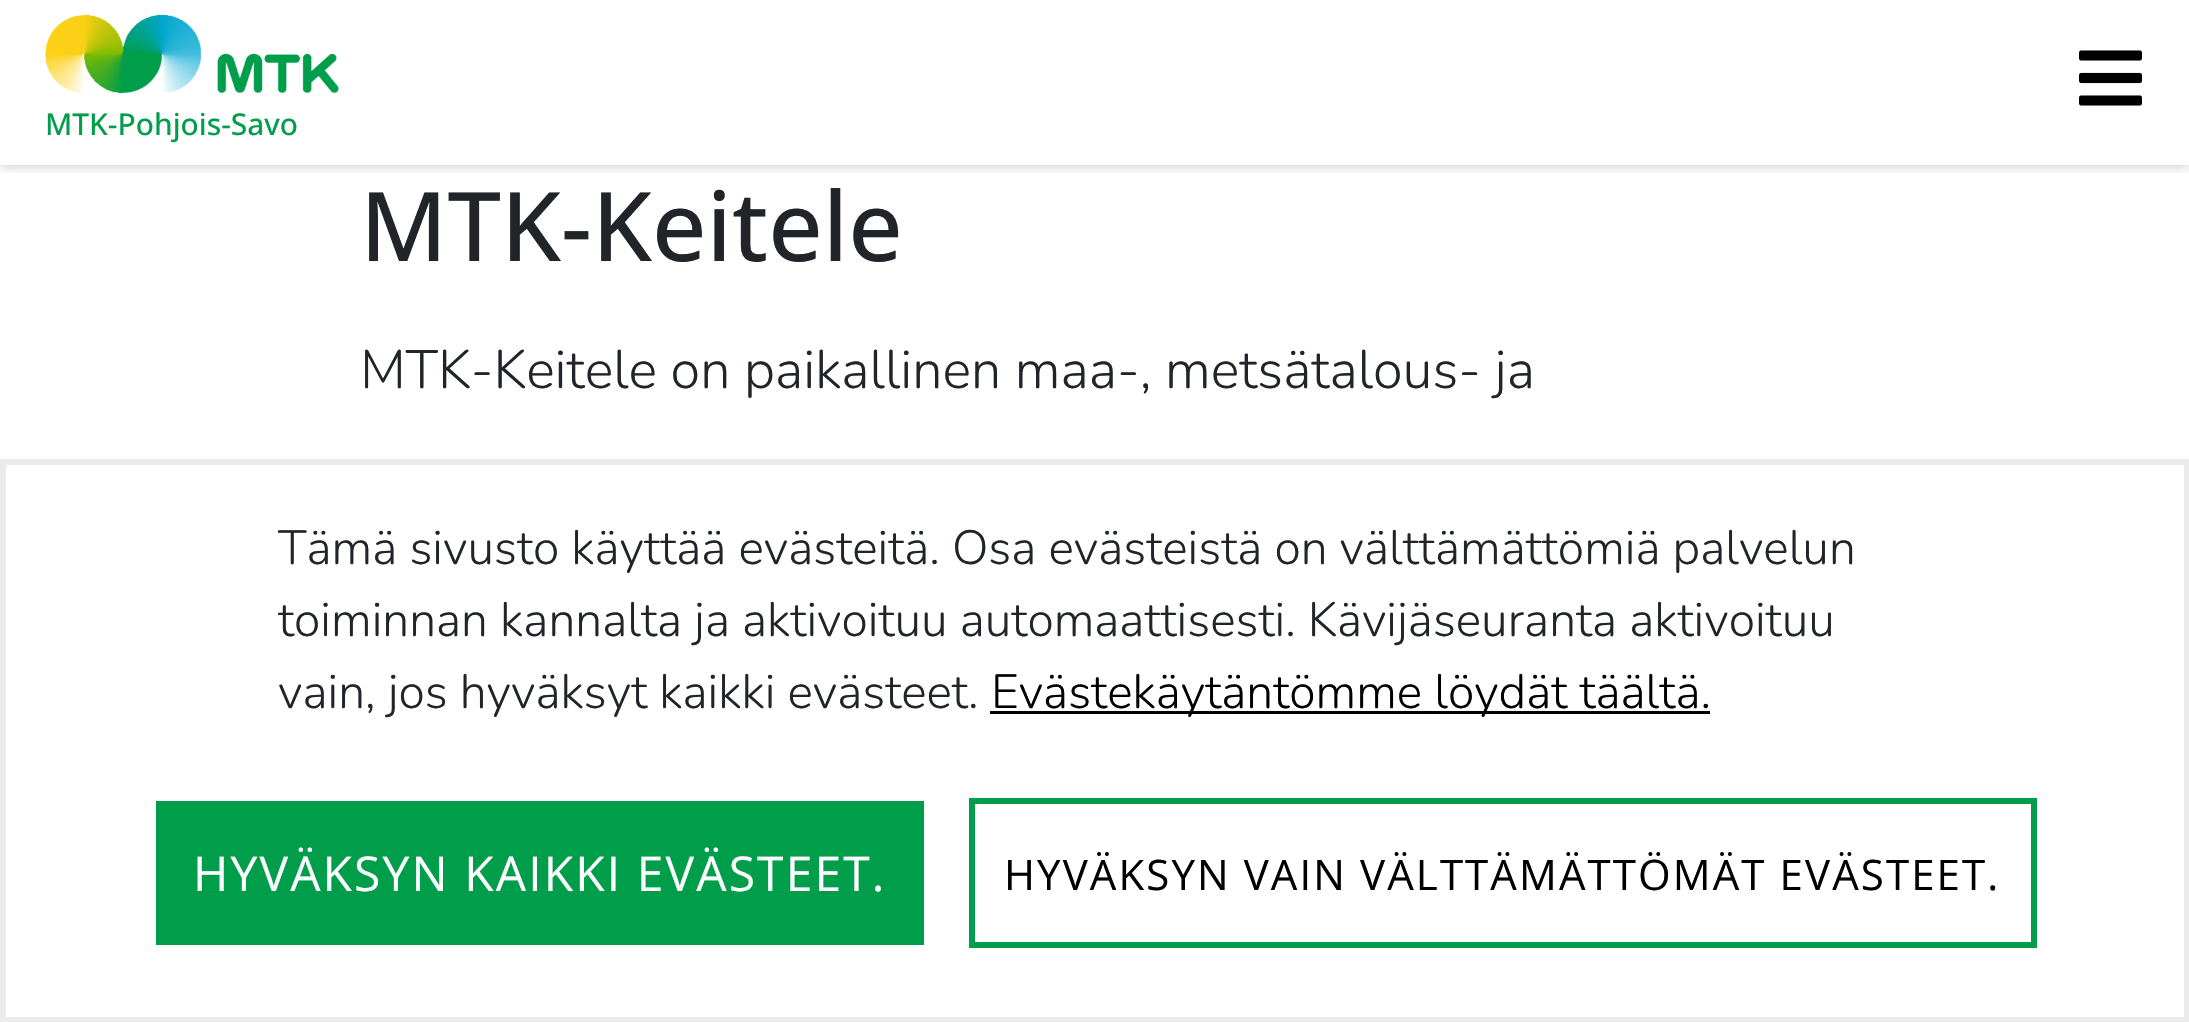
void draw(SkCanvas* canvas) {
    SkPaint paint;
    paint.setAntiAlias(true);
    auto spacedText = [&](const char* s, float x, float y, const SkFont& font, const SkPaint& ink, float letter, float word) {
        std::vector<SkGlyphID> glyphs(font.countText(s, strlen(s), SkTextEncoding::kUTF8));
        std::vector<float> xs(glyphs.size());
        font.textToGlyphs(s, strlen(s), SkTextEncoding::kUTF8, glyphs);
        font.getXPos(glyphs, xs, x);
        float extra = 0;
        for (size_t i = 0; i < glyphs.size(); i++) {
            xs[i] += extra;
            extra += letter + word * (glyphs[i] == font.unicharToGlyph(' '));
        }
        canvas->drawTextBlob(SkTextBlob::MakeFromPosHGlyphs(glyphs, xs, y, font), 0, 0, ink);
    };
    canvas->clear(0xFFFFFFFF);
    canvas->save();
    canvas->clipRect(SkRect::MakeXYWH(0, 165, 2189, 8));
    paint.setColor(0x40000000);
    paint.setMaskFilter(SkMaskFilter::MakeBlur(kNormal_SkBlurStyle, 6));
    canvas->drawRect(SkRect::MakeXYWH(0, 0, 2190, 165), paint);
    paint.setMaskFilter(nullptr);
    canvas->restore();
    canvas->drawImageRect(SkImages::DeferredFromEncodedData(SkData::MakeFromFileName("img1.png")), SkRect::MakeXYWH(2079, 50, 63, 56), SkSamplingOptions());
    canvas->drawImageRect(SkImages::DeferredFromEncodedData(SkData::MakeFromFileName("img2.png")), SkRect::MakeXYWH(45, 15, 294, 78), SkSamplingOptions());
    SkFont font1(fontMgr->matchFamilyStyle("Open Sans", SkFontStyle(500, SkFontStyle::kNormal_Width, SkFontStyle::kUpright_Slant)), 30);
    font1.setSubpixel(true);
    paint.setColor(0xFF009D4B);
    canvas->drawString("MTK-Pohjois-Savo", 45, 135, font1, paint);
    SkFont font2(fontMgr->matchFamilyStyle("Open Sans", SkFontStyle(500, SkFontStyle::kNormal_Width, SkFontStyle::kUpright_Slant)), 96);
    font2.setSubpixel(true);
    paint.setColor(0xFF212529);
    canvas->drawString("MTK-Keitele", 360, 261, font2, paint);
    SkFont font3(fontMgr->matchFamilyStyle("Nunito", SkFontStyle(300, SkFontStyle::kNormal_Width, SkFontStyle::kUpright_Slant)), 54);
    font3.setSubpixel(true);
    canvas->drawString("MTK-Keitele on paikallinen maa-, metsätalous- ja", 360, 388, font3, paint);
    paint.setStyle(SkPaint::kStroke_Style);
    paint.setStrokeWidth(6);
    paint.setColor(0xFFEBEBEB);
    canvas->drawRect(SkRect::MakeXYWH(3, 462, 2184, 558), paint);
    SkFont font4(fontMgr->matchFamilyStyle("Nunito", SkFontStyle(300, SkFontStyle::kNormal_Width, SkFontStyle::kUpright_Slant)), 48);
    font4.setSubpixel(true);
    paint.setStyle(SkPaint::kFill_Style);
    paint.setColor(0xFF212529);
    canvas->drawString("Tämä sivusto käyttää evästeitä. Osa evästeistä on välttämättömiä palvelun", 278, 564, font4, paint);
    canvas->drawString("toiminnan kannalta ja aktivoituu automaattisesti. Kävijäseuranta aktivoituu", 278, 636, font4, paint);
    canvas->drawString("vain, jos hyväksyt kaikki evästeet.", 278, 708, font4, paint);
    paint.setColor(0xFF000000);
    canvas->drawRect(SkRect::MakeXYWH(990, 711, 720, 3), paint);
    canvas->drawString("Evästekäytäntömme löydät täältä.", 991, 708, font4, paint);
    paint.setColor(0xFF009D4B);
    canvas->drawRect(SkRect::MakeXYWH(156, 801, 768, 144), paint);
    SkFont font5(fontMgr->matchFamilyStyle("Open Sans", SkFontStyle::Normal()), 48);
    font5.setSubpixel(true);
    paint.setColor(0xFFFFFFFF);
    spacedText("HYVÄKSYN KAIKKI EVÄSTEET.", 193, 891, font5, paint, 2.1f, 0);
    paint.setStyle(SkPaint::kStroke_Style);
    paint.setColor(0xFF009D4B);
    canvas->drawRect(SkRect::MakeXYWH(972, 801, 1062, 144), paint);
    SkFont font6(fontMgr->matchFamilyStyle("Open Sans", SkFontStyle::Normal()), 42);
    font6.setSubpixel(true);
    paint.setStyle(SkPaint::kFill_Style);
    paint.setColor(0xFF000000);
    spacedText("HYVÄKSYN VAIN VÄLTTÄMÄTTÖMÄT EVÄSTEET.", 1004, 890, font6, paint, 2.1f, 0);
}
